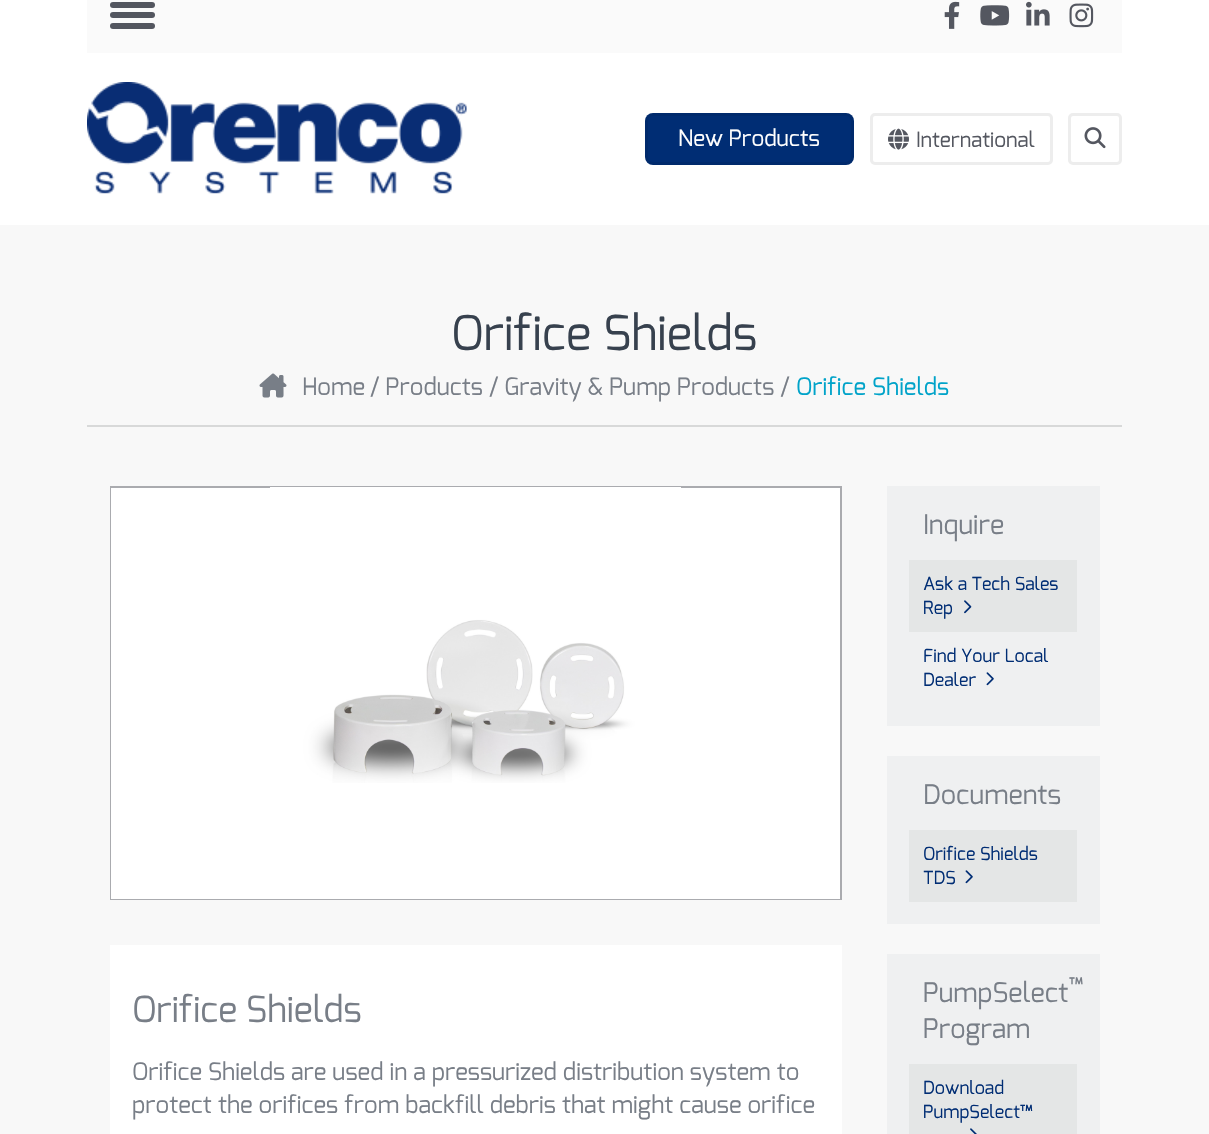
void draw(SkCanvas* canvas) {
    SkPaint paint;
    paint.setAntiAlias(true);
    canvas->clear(0xFFFFFFFF);
    paint.setColor(0xFFFAFAFA);
    canvas->drawRect(SkRect::MakeXYWH(87, 0, 1035, 53), paint);
    paint.setColor(0xFF53565F);
    canvas->drawRoundRect(SkRect::MakeXYWH(110, 12, 45, 6), 3, 3, paint);
    canvas->drawRoundRect(SkRect::MakeXYWH(110, 2, 45, 6), 3, 3, paint);
    canvas->drawRoundRect(SkRect::MakeXYWH(110, 23, 45, 6), 3, 3, paint);
    canvas->drawImageRect(SkImages::DeferredFromEncodedData(SkData::MakeFromFileName("img1.png")), SkRect::MakeXYWH(944, 1, 16, 28), SkSamplingOptions());
    canvas->drawImageRect(SkImages::DeferredFromEncodedData(SkData::MakeFromFileName("img2.png")), SkRect::MakeXYWH(980, 5, 30, 21), SkSamplingOptions());
    canvas->drawImageRect(SkImages::DeferredFromEncodedData(SkData::MakeFromFileName("img3.png")), SkRect::MakeXYWH(1026, 1, 24, 25), SkSamplingOptions());
    canvas->drawImageRect(SkImages::DeferredFromEncodedData(SkData::MakeFromFileName("img4.png")), SkRect::MakeXYWH(1069, 3, 25, 25), SkSamplingOptions());
    canvas->drawImageRect(SkImages::DeferredFromEncodedData(SkData::MakeFromFileName("img5.png")), SkRect::MakeXYWH(87, 82, 380, 112), SkSamplingOptions());
    paint.setColor(0xFF002D74);
    canvas->drawRoundRect(SkRect::MakeXYWH(645, 113, 209, 52), 8, 8, paint);
    paint.setStyle(SkPaint::kStroke_Style);
    paint.setStrokeWidth(3);
    paint.setColor(0x12000000);
    canvas->drawRoundRect(SkRect::MakeXYWH(646.5f, 114.5f, 206, 49), 6.5f, 6.5f, paint);
    SkFont font1(fontMgr->matchFamilyStyle("Exo", SkFontStyle::Normal()), 22.5f);
    font1.setSubpixel(true);
    paint.setStyle(SkPaint::kFill_Style);
    paint.setColor(0xFFFFFFFF);
    canvas->drawString("New Products", 678, 146, font1, paint);
    paint.setStyle(SkPaint::kStroke_Style);
    paint.setColor(0xFFEDEDED);
    canvas->drawRoundRect(SkRect::MakeXYWH(871.5f, 114.5f, 180, 49), 3.5f, 3.5f, paint);
    canvas->drawImageRect(SkImages::DeferredFromEncodedData(SkData::MakeFromFileName("img6.png")), SkRect::MakeXYWH(888, 128, 21, 22), SkSamplingOptions());
    SkFont font2(fontMgr->matchFamilyStyle("Exo", SkFontStyle::Normal()), 21);
    font2.setSubpixel(true);
    paint.setStyle(SkPaint::kFill_Style);
    paint.setColor(0xFF545760);
    canvas->drawString("International", 916, 147, font2, paint);
    paint.setStyle(SkPaint::kStroke_Style);
    paint.setColor(0xFFEDEDED);
    canvas->drawRoundRect(SkRect::MakeXYWH(1069.5f, 114.5f, 51, 49), 3.5f, 3.5f, paint);
    canvas->drawImageRect(SkImages::DeferredFromEncodedData(SkData::MakeFromFileName("img7.png")), SkRect::MakeXYWH(1084, 127, 22, 22), SkSamplingOptions());
    paint.setStyle(SkPaint::kFill_Style);
    paint.setColor(0xFFF8F8F8);
    canvas->drawRect(SkRect::MakeXYWH(0, 225, 1209, 909), paint);
    SkFont font3(fontMgr->matchFamilyStyle("Exo", SkFontStyle::Normal()), 48);
    font3.setSubpixel(true);
    paint.setColor(0xFF37414E);
    canvas->drawString("Orifice Shields", 451, 350, font3, paint);
    canvas->drawImageRect(SkImages::DeferredFromEncodedData(SkData::MakeFromFileName("img8.png")), SkRect::MakeXYWH(259, 373, 28, 25), SkSamplingOptions());
    SkFont font4(fontMgr->matchFamilyStyle("Exo", SkFontStyle::Normal()), 24);
    font4.setSubpixel(true);
    paint.setColor(0xFF787E87);
    canvas->drawString("Home", 302, 395, font4, paint);
    canvas->drawString("/ Products / Gravity & Pump Products /", 370, 395, font4, paint);
    paint.setColor(0xFF00A3C9);
    canvas->drawString("Orifice Shields", 796, 395, font4, paint);
    paint.setColor(0xFFD8D9D9);
    canvas->drawRect(SkRect::MakeXYWH(87, 425, 1035, 2), paint);
    paint.setStyle(SkPaint::kStroke_Style);
    paint.setStrokeWidth(2);
    paint.setColor(0xFFAAABAF);
    canvas->drawRect(SkRect::MakeXYWH(111, 487, 730, 412), paint);
    paint.setStyle(SkPaint::kFill_Style);
    paint.setColor(0xFFFFFFFF);
    canvas->drawRect(SkRect::MakeXYWH(111, 488, 729, 411), paint);
    canvas->drawImageRect(SkImages::DeferredFromEncodedData(SkData::MakeFromFileName("img9.png")), SkRect::MakeXYWH(270, 487, 411, 296), SkSamplingOptions());
    canvas->drawRect(SkRect::MakeXYWH(110, 945, 732, 189), paint);
    SkFont font5(fontMgr->matchFamilyStyle("Exo", SkFontStyle::Normal()), 36);
    font5.setSubpixel(true);
    paint.setColor(0xFF787E87);
    canvas->drawString("Orifice Shields", 132, 1022, font5, paint);
    canvas->drawString("Orifice Shields are used in a pressurized distribution system to", 132, 1080, font4, paint);
    canvas->drawString("protect the orifices from backfill debris that might cause orifice", 132, 1113, font4, paint);
    paint.setColor(0xFFEFF0F1);
    canvas->drawRect(SkRect::MakeXYWH(887, 486, 213, 240), paint);
    SkFont font6(fontMgr->matchFamilyStyle("Exo", SkFontStyle::Normal()), 27);
    font6.setSubpixel(true);
    paint.setColor(0xFF787E87);
    canvas->drawString("Inquire", 923, 534, font6, paint);
    paint.setColor(0xFFE4E6E6);
    canvas->drawRect(SkRect::MakeXYWH(909, 560, 168, 72), paint);
    SkFont font7(fontMgr->matchFamilyStyle("Exo", SkFontStyle::Normal()), 18);
    font7.setSubpixel(true);
    paint.setColor(0xFF002D74);
    canvas->drawString("Ask a Tech Sales", 923, 590, font7, paint);
    canvas->drawString("Rep", 923, 614, font7, paint);
    canvas->drawImageRect(SkImages::DeferredFromEncodedData(SkData::MakeFromFileName("img10.png")), SkRect::MakeXYWH(964, 600, 8, 14), SkSamplingOptions());
    canvas->drawString("Find Your Local", 923, 662, font7, paint);
    canvas->drawString("Dealer", 923, 686, font7, paint);
    canvas->drawImageRect(SkImages::DeferredFromEncodedData(SkData::MakeFromFileName("img11.png")), SkRect::MakeXYWH(986, 672, 8, 14), SkSamplingOptions());
    paint.setColor(0xFFEFF0F1);
    canvas->drawRect(SkRect::MakeXYWH(887, 756, 213, 168), paint);
    paint.setColor(0xFF787E87);
    canvas->drawString("Documents", 923, 804, font6, paint);
    paint.setColor(0xFFE4E6E6);
    canvas->drawRect(SkRect::MakeXYWH(909, 830, 168, 72), paint);
    paint.setColor(0xFF002D74);
    canvas->drawString("Orifice Shields", 923, 860, font7, paint);
    canvas->drawString("TDS", 923, 884, font7, paint);
    canvas->drawImageRect(SkImages::DeferredFromEncodedData(SkData::MakeFromFileName("img12.png")), SkRect::MakeXYWH(965, 870, 8, 14), SkSamplingOptions());
    paint.setColor(0xFFEFF0F1);
    canvas->drawRect(SkRect::MakeXYWH(887, 954, 213, 180), paint);
    paint.setColor(0xFF787E87);
    canvas->drawString("PumpSelect", 923, 1002, font6, paint);
    SkFont font8(fontMgr->matchFamilyStyle("Exo", SkFontStyle::Normal()), 20);
    font8.setSubpixel(true);
    canvas->drawString("™", 1069, 992, font8, paint);
    canvas->drawString("Program", 923, 1038, font6, paint);
    paint.setColor(0xFFE4E6E6);
    canvas->drawRect(SkRect::MakeXYWH(909, 1064, 168, 70), paint);
    paint.setColor(0xFF002D74);
    canvas->drawString("Download", 923, 1094, font7, paint);
    canvas->drawString("PumpSelect™", 923, 1118, font7, paint);
    canvas->drawImageRect(SkImages::DeferredFromEncodedData(SkData::MakeFromFileName("img13.png")), SkRect::MakeXYWH(970, 1128, 7, 6), SkSamplingOptions());
}
